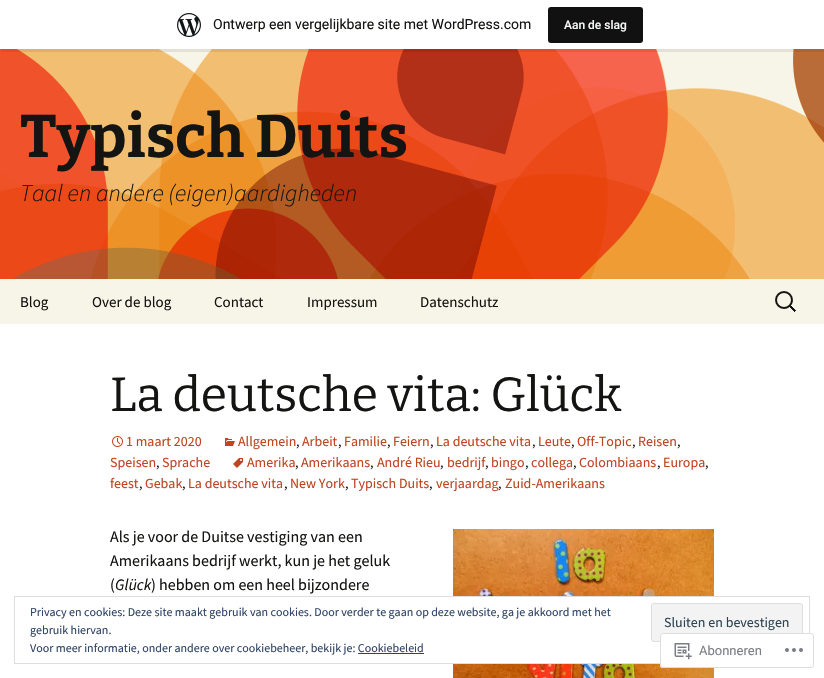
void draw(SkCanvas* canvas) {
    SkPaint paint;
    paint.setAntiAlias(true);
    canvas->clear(0xFFFFFFFF);
    canvas->drawImageRect(SkImages::DeferredFromEncodedData(SkData::MakeFromFileName("img2.png")), SkRect::MakeXYWH(0, 49, 824, 230), SkSamplingOptions());
    paint.setColor(0x14000000);
    canvas->drawPath(SkPathBuilder().moveTo(1, 49).lineTo(1, 52).lineTo(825, 52).lineTo(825, 3).lineTo(824, 3).lineTo(824, 49).close().detach(), paint);
    canvas->drawImageRect(SkImages::DeferredFromEncodedData(SkData::MakeFromFileName("img1.png")), SkRect::MakeXYWH(177, 13, 24, 24), SkSamplingOptions());
    SkFont font1(fontMgr->matchFamilyStyle("Roboto", SkFontStyle::Normal()), 14);
    font1.setSubpixel(true);
    paint.setColor(0xFF141412);
    canvas->drawString("Ontwerp een vergelijkbare site met WordPress.com", 213, 29, font1, paint);
    paint.setColor(0xFF111111);
    canvas->drawRoundRect(SkRect::MakeXYWH(548, 7, 95, 36), 3, 3, paint);
    SkFont font2(fontMgr->matchFamilyStyle("Roboto", SkFontStyle(500, SkFontStyle::kNormal_Width, SkFontStyle::kUpright_Slant)), 12);
    font2.setSubpixel(true);
    paint.setColor(0xFFF6F7F7);
    canvas->drawString("Aan de slag", 564, 29, font2, paint);
    SkFont font3(fontMgr->matchFamilyStyle("Bitter", SkFontStyle::Bold()), 60);
    font3.setSubpixel(true);
    paint.setColor(0xFF141412);
    canvas->drawString("Typisch Duits", 20, 157, font3, paint);
    SkFont font4(fontMgr->matchFamilyStyle("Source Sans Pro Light", SkFontStyle(300, SkFontStyle::kNormal_Width, SkFontStyle::kItalic_Slant)), 24);
    font4.setSubpixel(true);
    canvas->drawString("Taal en andere (eigen)aardigheden", 20, 201, font4, paint);
    paint.setColor(0xFFF7F5E7);
    canvas->drawRect(SkRect::MakeXYWH(0, 279, 824, 45), paint);
    SkFont font5(fontMgr->matchFamilyStyle("Source Sans Pro", SkFontStyle::Normal()), 15);
    font5.setSubpixel(true);
    paint.setColor(0xFF141412);
    canvas->drawString("Blog", 20, 307, font5, paint);
    canvas->drawString("Over de blog", 92, 307, font5, paint);
    canvas->drawString("Contact", 214, 307, font5, paint);
    canvas->drawString("Impressum", 307, 307, font5, paint);
    canvas->drawString("Datenschutz", 420, 307, font5, paint);
    canvas->drawImageRect(SkImages::DeferredFromEncodedData(SkData::MakeFromFileName("img3.png")), SkRect::MakeXYWH(775, 291, 21, 21), SkSamplingOptions());
    SkFont font6(fontMgr->matchFamilyStyle("Bitter", SkFontStyle::Normal()), 48);
    font6.setSubpixel(true);
    canvas->drawString("La deutsche vita: Glück", 110, 411, font6, paint);
    canvas->drawImageRect(SkImages::DeferredFromEncodedData(SkData::MakeFromFileName("img4.png")), SkRect::MakeXYWH(225, 438, 10, 8), SkSamplingOptions());
    SkFont font7(fontMgr->matchFamilyStyle("Source Sans Pro", SkFontStyle::Normal()), 14);
    font7.setSubpixel(true);
    paint.setColor(0xFFBF4520);
    canvas->drawString("Allgemein", 238, 446, font7, paint);
    paint.setColor(0xFF141412);
    canvas->drawString(",", 296, 446, font7, paint);
    paint.setColor(0xFFBF4520);
    canvas->drawString("Arbeit", 302, 446, font7, paint);
    paint.setColor(0xFF141412);
    canvas->drawString(",", 338, 446, font7, paint);
    paint.setColor(0xFFBF4520);
    canvas->drawString("Familie", 344, 446, font7, paint);
    paint.setColor(0xFF141412);
    canvas->drawString(",", 387, 446, font7, paint);
    paint.setColor(0xFFBF4520);
    canvas->drawString("Feiern", 393, 446, font7, paint);
    paint.setColor(0xFF141412);
    canvas->drawString(",", 430, 446, font7, paint);
    paint.setColor(0xFFBF4520);
    canvas->drawString("La deutsche vita", 436, 446, font7, paint);
    paint.setColor(0xFF141412);
    canvas->drawString(",", 532, 446, font7, paint);
    paint.setColor(0xFFBF4520);
    canvas->drawString("Leute", 538, 446, font7, paint);
    paint.setColor(0xFF141412);
    canvas->drawString(",", 571, 446, font7, paint);
    paint.setColor(0xFFBF4520);
    canvas->drawString("Off-Topic", 577, 446, font7, paint);
    paint.setColor(0xFF141412);
    canvas->drawString(",", 632, 446, font7, paint);
    paint.setColor(0xFFBF4520);
    canvas->drawString("Reisen", 638, 446, font7, paint);
    paint.setColor(0xFF141412);
    canvas->drawString(",", 677, 446, font7, paint);
    paint.setColor(0xFFBF4520);
    canvas->drawString("Speisen", 110, 467, font7, paint);
    paint.setColor(0xFF141412);
    canvas->drawString(",", 156, 467, font7, paint);
    paint.setColor(0xFFBF4520);
    canvas->drawString("Sprache", 162, 467, font7, paint);
    canvas->drawImageRect(SkImages::DeferredFromEncodedData(SkData::MakeFromFileName("img5.png")), SkRect::MakeXYWH(112, 436, 11, 11), SkSamplingOptions());
    canvas->drawString("1 maart 2020", 126, 446, font7, paint);
    canvas->drawImageRect(SkImages::DeferredFromEncodedData(SkData::MakeFromFileName("img6.png")), SkRect::MakeXYWH(233, 458, 10, 10), SkSamplingOptions());
    canvas->drawString("Amerika", 247, 467, font7, paint);
    paint.setColor(0xFF141412);
    canvas->drawString(",", 295, 467, font7, paint);
    paint.setColor(0xFFBF4520);
    canvas->drawString("Amerikaans", 301, 467, font7, paint);
    paint.setColor(0xFF141412);
    canvas->drawString(",", 370, 467, font7, paint);
    paint.setColor(0xFFBF4520);
    canvas->drawString("André Rieu", 377, 467, font7, paint);
    paint.setColor(0xFF141412);
    canvas->drawString(",", 440, 467, font7, paint);
    paint.setColor(0xFFBF4520);
    canvas->drawString("bedrijf", 447, 467, font7, paint);
    paint.setColor(0xFF141412);
    canvas->drawString(",", 485, 467, font7, paint);
    paint.setColor(0xFFBF4520);
    canvas->drawString("bingo", 491, 467, font7, paint);
    paint.setColor(0xFF141412);
    canvas->drawString(",", 525, 467, font7, paint);
    paint.setColor(0xFFBF4520);
    canvas->drawString("collega", 531, 467, font7, paint);
    paint.setColor(0xFF141412);
    canvas->drawString(",", 573, 467, font7, paint);
    paint.setColor(0xFFBF4520);
    canvas->drawString("Colombiaans", 579, 467, font7, paint);
    paint.setColor(0xFF141412);
    canvas->drawString(",", 657, 467, font7, paint);
    paint.setColor(0xFFBF4520);
    canvas->drawString("Europa", 663, 467, font7, paint);
    paint.setColor(0xFF141412);
    canvas->drawString(",", 705, 467, font7, paint);
    paint.setColor(0xFFBF4520);
    canvas->drawString("feest", 110, 488, font7, paint);
    paint.setColor(0xFF141412);
    canvas->drawString(",", 139, 488, font7, paint);
    paint.setColor(0xFFBF4520);
    canvas->drawString("Gebak", 145, 488, font7, paint);
    paint.setColor(0xFF141412);
    canvas->drawString(",", 182, 488, font7, paint);
    paint.setColor(0xFFBF4520);
    canvas->drawString("La deutsche vita", 188, 488, font7, paint);
    paint.setColor(0xFF141412);
    canvas->drawString(",", 284, 488, font7, paint);
    paint.setColor(0xFFBF4520);
    canvas->drawString("New York", 290, 488, font7, paint);
    paint.setColor(0xFF141412);
    canvas->drawString(",", 345, 488, font7, paint);
    paint.setColor(0xFFBF4520);
    canvas->drawString("Typisch Duits", 351, 488, font7, paint);
    paint.setColor(0xFF141412);
    canvas->drawString(",", 429, 488, font7, paint);
    paint.setColor(0xFFBF4520);
    canvas->drawString("verjaardag", 436, 488, font7, paint);
    paint.setColor(0xFF141412);
    canvas->drawString(",", 498, 488, font7, paint);
    paint.setColor(0xFFBF4520);
    canvas->drawString("Zuid-Amerikaans", 505, 488, font7, paint);
    SkFont font8(fontMgr->matchFamilyStyle("Source Sans Pro", SkFontStyle::Normal()), 16);
    font8.setSubpixel(true);
    paint.setColor(0xFF141412);
    canvas->drawString("Als je voor de Duitse vestiging van een", 110, 542, font8, paint);
    canvas->drawImageRect(SkImages::DeferredFromEncodedData(SkData::MakeFromFileName("img7.png")), SkRect::MakeXYWH(453, 529, 261, 149), SkSamplingOptions());
    canvas->drawString("Amerikaans bedrijf werkt, kun je het geluk", 110, 566, font8, paint);
    canvas->drawString("(", 110, 590, font8, paint);
    SkFont font9(fontMgr->matchFamilyStyle("Source Sans Pro", SkFontStyle::Italic()), 16);
    font9.setSubpixel(true);
    canvas->drawString("Glück", 115, 590, font9, paint);
    canvas->drawString(") hebben om een heel bijzondere", 151, 590, font8, paint);
    paint.setColor(0xFFFFFFFF);
    canvas->drawRect(SkRect::MakeXYWH(453, 597, 261, 66), paint);
    paint.setStyle(SkPaint::kStroke_Style);
    paint.setStrokeWidth(1);
    paint.setColor(0xFFDEDEDE);
    canvas->drawRect(SkRect::MakeXYWH(14.5f, 596.5f, 795, 67), paint);
    SkFont font10(fontMgr->matchFamilyStyle("Source Sans Pro", SkFontStyle::Normal()), 12);
    font10.setSubpixel(true);
    paint.setStyle(SkPaint::kFill_Style);
    paint.setColor(0xFF2E4467);
    canvas->drawString("Privacy en cookies: Deze site maakt gebruik van cookies. Door verder te gaan op deze website, ga je akkoord met het", 30, 616, font10, paint);
    canvas->drawString("gebruik hiervan.", 30, 634, font10, paint);
    paint.setColor(0xFFF3F3F3);
    canvas->drawRoundRect(SkRect::MakeXYWH(651.5f, 603.5f, 151, 38), 2.5f, 2.5f, paint);
    paint.setStyle(SkPaint::kStroke_Style);
    paint.setColor(0xFFDEDEDE);
    canvas->drawRoundRect(SkRect::MakeXYWH(651.5f, 603.5f, 151, 38), 2.5f, 2.5f, paint);
    paint.setStyle(SkPaint::kFill_Style);
    paint.setColor(0xFF2E4453);
    canvas->drawString("Sluiten en bevestigen", 664, 627, font7, paint);
    paint.setColor(0xFF2E4467);
    canvas->drawString("Voor meer informatie, onder andere over cookiebeheer, bekijk je: Cookiebeleid", 30, 652, font10, paint);
    canvas->drawRect(SkRect::MakeXYWH(358, 653, 66, 1), paint);
    paint.setColor(0xFAFFFFFF);
    canvas->drawRoundRect(SkRect::MakeXYWH(660, 633, 154, 35), 3, 3, paint);
    paint.setStyle(SkPaint::kStroke_Style);
    paint.setColor(0xFADCDCDE);
    canvas->drawRoundRect(SkRect::MakeXYWH(660.5f, 633.5f, 153, 34), 2.5f, 2.5f, paint);
    canvas->drawImageRect(SkImages::DeferredFromEncodedData(SkData::MakeFromFileName("img8.png")), SkRect::MakeXYWH(674, 643, 18, 17), SkSamplingOptions());
    SkFont font11(fontMgr->matchFamilyStyle("Roboto", SkFontStyle::Normal()), 13);
    font11.setSubpixel(true);
    paint.setStyle(SkPaint::kFill_Style);
    paint.setColor(0xFF7B7F85);
    canvas->drawString("Abonneren", 699, 655, font11, paint);
    canvas->drawImageRect(SkImages::DeferredFromEncodedData(SkData::MakeFromFileName("img9.png")), SkRect::MakeXYWH(785, 648, 18, 4), SkSamplingOptions());
}
